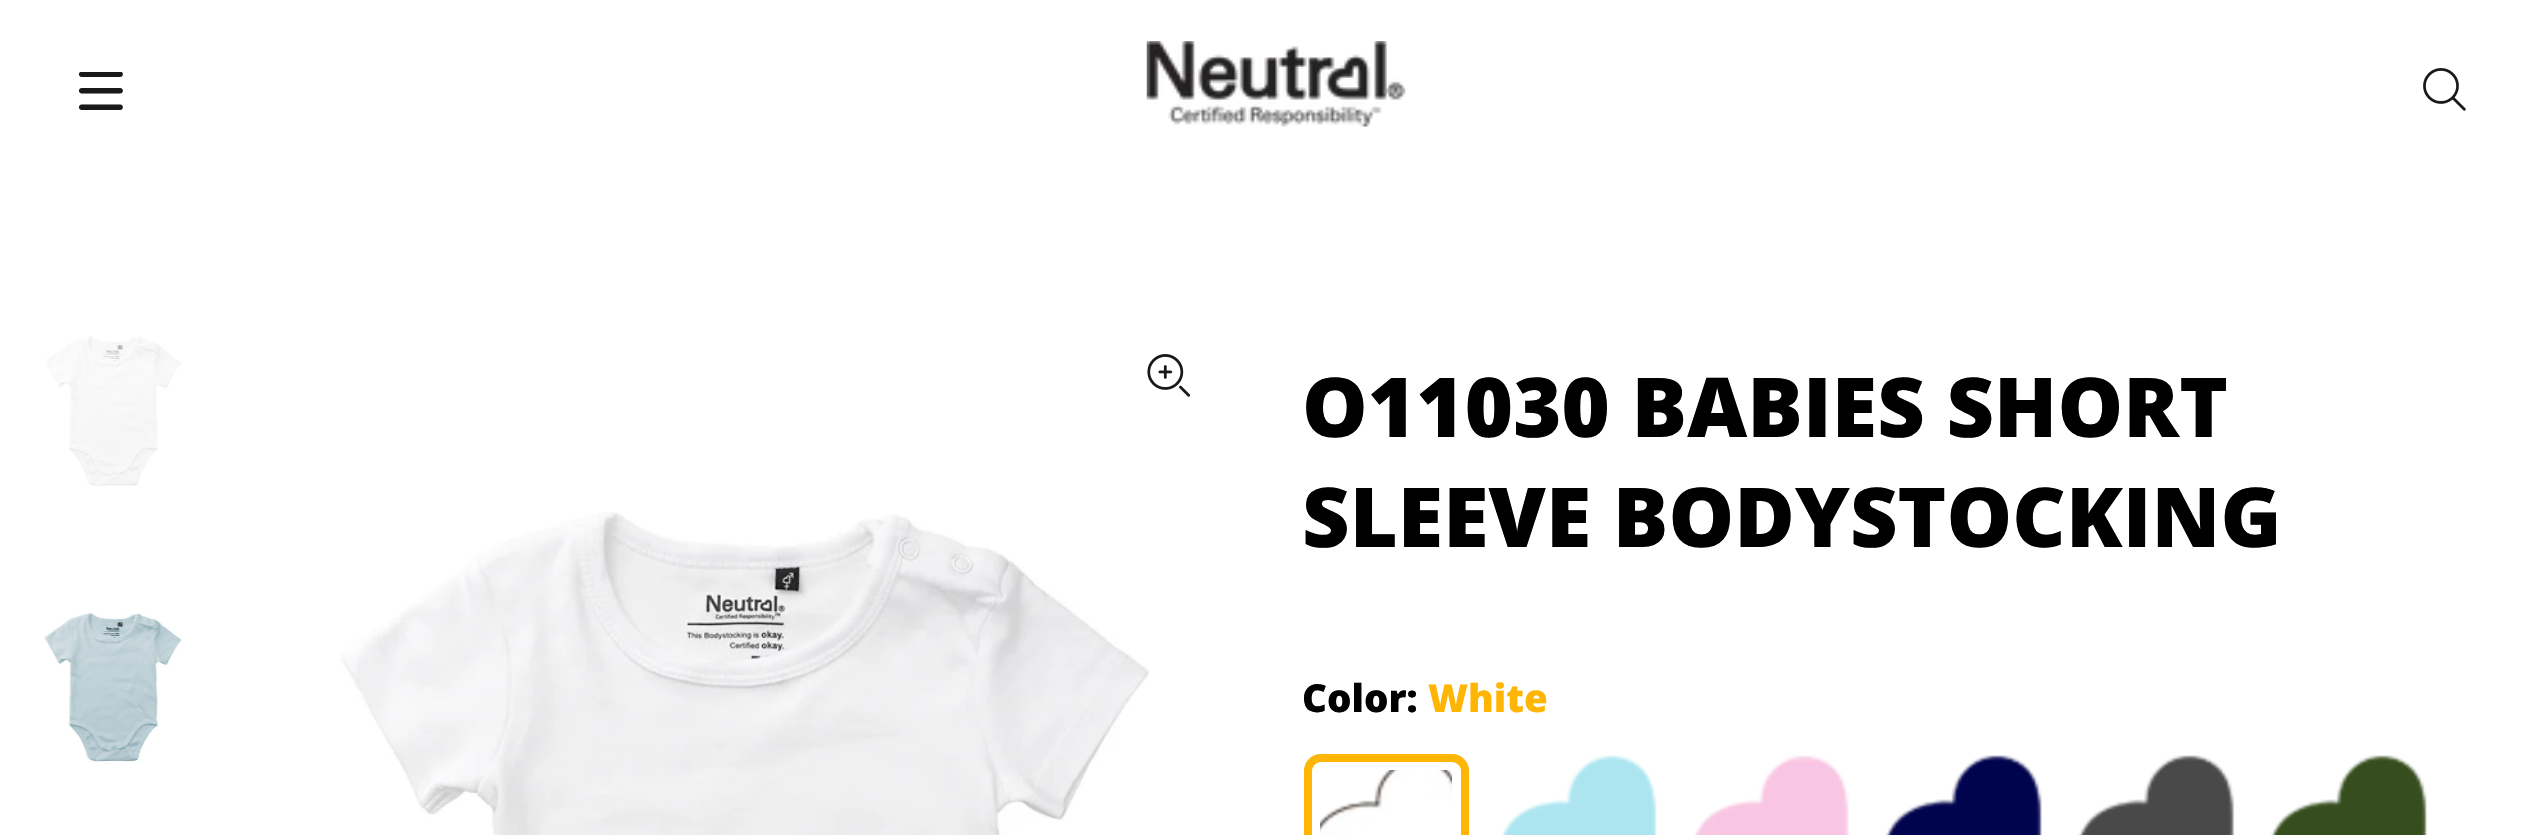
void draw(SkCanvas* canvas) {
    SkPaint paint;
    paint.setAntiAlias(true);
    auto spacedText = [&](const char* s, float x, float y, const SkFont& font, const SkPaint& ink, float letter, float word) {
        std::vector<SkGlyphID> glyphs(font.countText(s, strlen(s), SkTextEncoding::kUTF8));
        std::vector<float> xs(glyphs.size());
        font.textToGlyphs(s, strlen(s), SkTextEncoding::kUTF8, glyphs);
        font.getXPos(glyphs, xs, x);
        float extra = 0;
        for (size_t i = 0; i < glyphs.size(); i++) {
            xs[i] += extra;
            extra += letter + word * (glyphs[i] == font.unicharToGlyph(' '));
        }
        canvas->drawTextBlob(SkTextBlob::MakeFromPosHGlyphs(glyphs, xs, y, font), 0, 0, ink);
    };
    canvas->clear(0xFFFFFFFF);
    canvas->drawImageRect(SkImages::DeferredFromEncodedData(SkData::MakeFromFileName("img1.png")), SkRect::MakeXYWH(78, 72, 45, 38), SkSamplingOptions());
    canvas->drawImageRect(SkImages::DeferredFromEncodedData(SkData::MakeFromFileName("img2.png")), SkRect::MakeXYWH(1146, 41, 260, 86), SkSamplingOptions());
    canvas->drawImageRect(SkImages::DeferredFromEncodedData(SkData::MakeFromFileName("img3.png")), SkRect::MakeXYWH(2423, 68, 43, 43), SkSamplingOptions());
    canvas->drawImageRect(SkImages::DeferredFromEncodedData(SkData::MakeFromFileName("img4.png")), SkRect::MakeXYWH(45, 336, 137, 150), SkSamplingOptions());
    canvas->drawImageRect(SkImages::DeferredFromEncodedData(SkData::MakeFromFileName("img5.png")), SkRect::MakeXYWH(44, 613, 138, 149), SkSamplingOptions());
    canvas->drawImageRect(SkImages::DeferredFromEncodedData(SkData::MakeFromFileName("img6.png")), SkRect::MakeXYWH(1147, 354, 44, 43), SkSamplingOptions());
    canvas->drawImageRect(SkImages::DeferredFromEncodedData(SkData::MakeFromFileName("img7.png")), SkRect::MakeXYWH(339, 512, 812, 323), SkSamplingOptions());
    SkFont font1(fontMgr->matchFamilyStyle("Open Sans", SkFontStyle(800, SkFontStyle::kNormal_Width, SkFontStyle::kUpright_Slant)), 82.5f);
    font1.setSubpixel(true);
    paint.setColor(0xFF000000);
    spacedText("O11030 BABIES SHORT", 1302, 437, font1, paint, 0.1f, 0);
    spacedText("SLEEVE BODYSTOCKING", 1302, 547, font1, paint, 0.1f, 0);
    SkFont font2(fontMgr->matchFamilyStyle("Open Sans", SkFontStyle(800, SkFontStyle::kNormal_Width, SkFontStyle::kUpright_Slant)), 38.5f);
    font2.setSubpixel(true);
    canvas->drawString("Color:", 1302, 712, font2, paint);
    paint.setColor(0xFFFFB503);
    canvas->drawString("White", 1428, 712, font2, paint);
    canvas->drawImageRect(SkImages::DeferredFromEncodedData(SkData::MakeFromFileName("img8.png")), SkRect::MakeXYWH(1320, 770, 132, 65), SkSamplingOptions());
    paint.setStyle(SkPaint::kStroke_Style);
    paint.setStrokeWidth(3);
    paint.setColor(0xFFDEE2E6);
    canvas->drawRoundRect(SkRect::MakeXYWH(1305.5f, 755.5f, 162, 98), 15.5f, 15.5f, paint);
    paint.setStrokeWidth(14);
    paint.setColor(0xFFFFFFFF);
    canvas->drawRoundRect(SkRect::MakeXYWH(1313, 763, 146, 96), 10, 10, paint);
    paint.setStrokeWidth(8);
    paint.setColor(0xFFFFB503);
    canvas->drawRoundRect(SkRect::MakeXYWH(1308, 758, 157, 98), 13, 13, paint);
    canvas->drawImageRect(SkImages::DeferredFromEncodedData(SkData::MakeFromFileName("img9.png")), SkRect::MakeXYWH(1501, 755, 156, 80), SkSamplingOptions());
    canvas->drawImageRect(SkImages::DeferredFromEncodedData(SkData::MakeFromFileName("img10.png")), SkRect::MakeXYWH(1694, 755, 155, 80), SkSamplingOptions());
    canvas->drawImageRect(SkImages::DeferredFromEncodedData(SkData::MakeFromFileName("img11.png")), SkRect::MakeXYWH(1885, 755, 157, 80), SkSamplingOptions());
    canvas->drawImageRect(SkImages::DeferredFromEncodedData(SkData::MakeFromFileName("img12.png")), SkRect::MakeXYWH(2078, 755, 157, 80), SkSamplingOptions());
    canvas->drawImageRect(SkImages::DeferredFromEncodedData(SkData::MakeFromFileName("img13.png")), SkRect::MakeXYWH(2271, 755, 156, 80), SkSamplingOptions());
}
